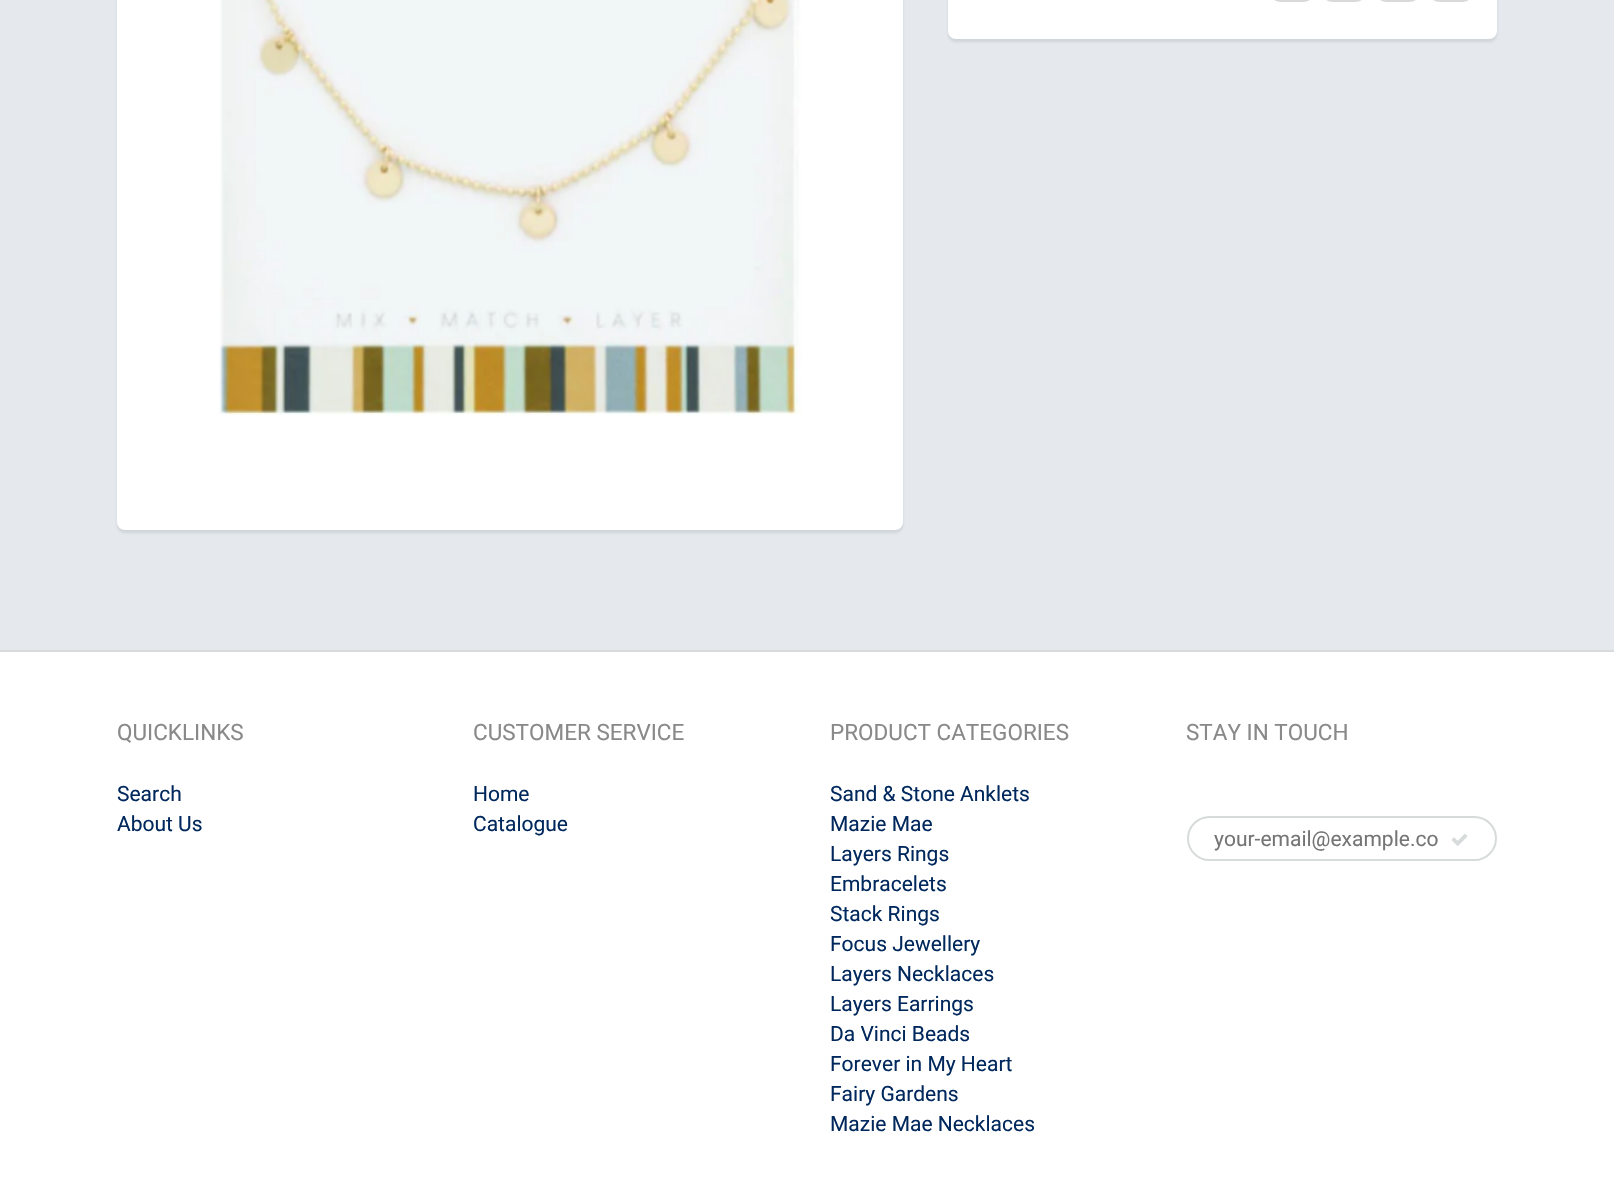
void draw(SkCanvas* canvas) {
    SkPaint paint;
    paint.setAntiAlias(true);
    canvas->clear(0xFFFFFFFF);
    paint.setColor(0xFFE5E9EE);
    canvas->drawRect(SkRect::MakeXYWH(0, 0, 1614, 650), paint);
    paint.setColor(0x1A0B191C);
    paint.setMaskFilter(SkMaskFilter::MakeBlur(kNormal_SkBlurStyle, 1.5f));
    canvas->drawRoundRect(SkRect::MakeXYWH(117, -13, 786, 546), 8, 8, paint);
    paint.setMaskFilter(nullptr);
    paint.setColor(0xFFFFFFFF);
    canvas->drawRoundRect(SkRect::MakeXYWH(117, -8, 786, 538), 8, 8, paint);
    canvas->drawImageRect(SkImages::DeferredFromEncodedData(SkData::MakeFromFileName("img1.png")), SkRect::MakeXYWH(219, 0, 583, 416), SkSamplingOptions());
    paint.setColor(0x1A0B191C);
    paint.setMaskFilter(SkMaskFilter::MakeBlur(kNormal_SkBlurStyle, 1.5f));
    canvas->drawRoundRect(SkRect::MakeXYWH(948, -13, 549, 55), 8, 8, paint);
    paint.setMaskFilter(nullptr);
    paint.setColor(0xFFFFFFFF);
    canvas->drawRoundRect(SkRect::MakeXYWH(948, -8, 549, 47), 8, 8, paint);
    paint.setColor(0xFFD9D9D9);
    canvas->drawRoundRect(SkRect::MakeXYWH(1268, -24, 48, 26), 24, 24, paint);
    canvas->drawRoundRect(SkRect::MakeXYWH(1320, -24, 48, 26), 24, 24, paint);
    canvas->drawRoundRect(SkRect::MakeXYWH(1374, -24, 48, 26), 24, 24, paint);
    canvas->drawRoundRect(SkRect::MakeXYWH(1427, -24, 48, 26), 24, 24, paint);
    paint.setColor(0xFFD7DBDB);
    canvas->drawRect(SkRect::MakeXYWH(0, 650, 1614, 2), paint);
    SkFont font1(fontMgr->matchFamilyStyle("Roboto", SkFontStyle::Normal()), 22.5f);
    font1.setSubpixel(true);
    paint.setColor(0xFF898989);
    canvas->drawString("QUICKLINKS", 117, 740, font1, paint);
    SkFont font2(fontMgr->matchFamilyStyle("Roboto", SkFontStyle::Normal()), 21);
    font2.setSubpixel(true);
    paint.setColor(0xFF00285D);
    canvas->drawString("Search", 117, 801, font2, paint);
    canvas->drawString("About Us", 117, 831, font2, paint);
    paint.setColor(0xFF898989);
    canvas->drawString("CUSTOMER SERVICE", 473, 740, font1, paint);
    paint.setColor(0xFF00285D);
    canvas->drawString("Home", 473, 801, font2, paint);
    canvas->drawString("Catalogue", 473, 831, font2, paint);
    paint.setColor(0xFF898989);
    canvas->drawString("PRODUCT CATEGORIES", 830, 740, font1, paint);
    paint.setColor(0xFF00285D);
    canvas->drawString("Sand & Stone Anklets", 830, 801, font2, paint);
    canvas->drawString("Mazie Mae", 830, 831, font2, paint);
    canvas->drawString("Layers Rings", 830, 861, font2, paint);
    canvas->drawString("Embracelets", 830, 891, font2, paint);
    canvas->drawString("Stack Rings", 830, 921, font2, paint);
    canvas->drawString("Focus Jewellery", 830, 951, font2, paint);
    canvas->drawString("Layers Necklaces", 830, 981, font2, paint);
    canvas->drawString("Layers Earrings", 830, 1011, font2, paint);
    canvas->drawString("Da Vinci Beads", 830, 1041, font2, paint);
    canvas->drawString("Forever in My Heart", 830, 1071, font2, paint);
    canvas->drawString("Fairy Gardens", 830, 1101, font2, paint);
    canvas->drawString("Mazie Mae Necklaces", 830, 1131, font2, paint);
    paint.setColor(0xFF898989);
    canvas->drawString("STAY IN TOUCH", 1186, 740, font1, paint);
    paint.setStyle(SkPaint::kStroke_Style);
    paint.setStrokeWidth(2);
    paint.setColor(0xFFD7DBDB);
    canvas->drawRoundRect(SkRect::MakeXYWH(1188, 817, 308, 43), 21.5f, 21.5f, paint);
    paint.setStyle(SkPaint::kFill_Style);
    paint.setColor(0xFF757575);
    canvas->drawString("your-email@example.co", 1214, 846, font2, paint);
    canvas->drawImageRect(SkImages::DeferredFromEncodedData(SkData::MakeFromFileName("img2.png")), SkRect::MakeXYWH(1451, 834, 17, 12), SkSamplingOptions());
}
